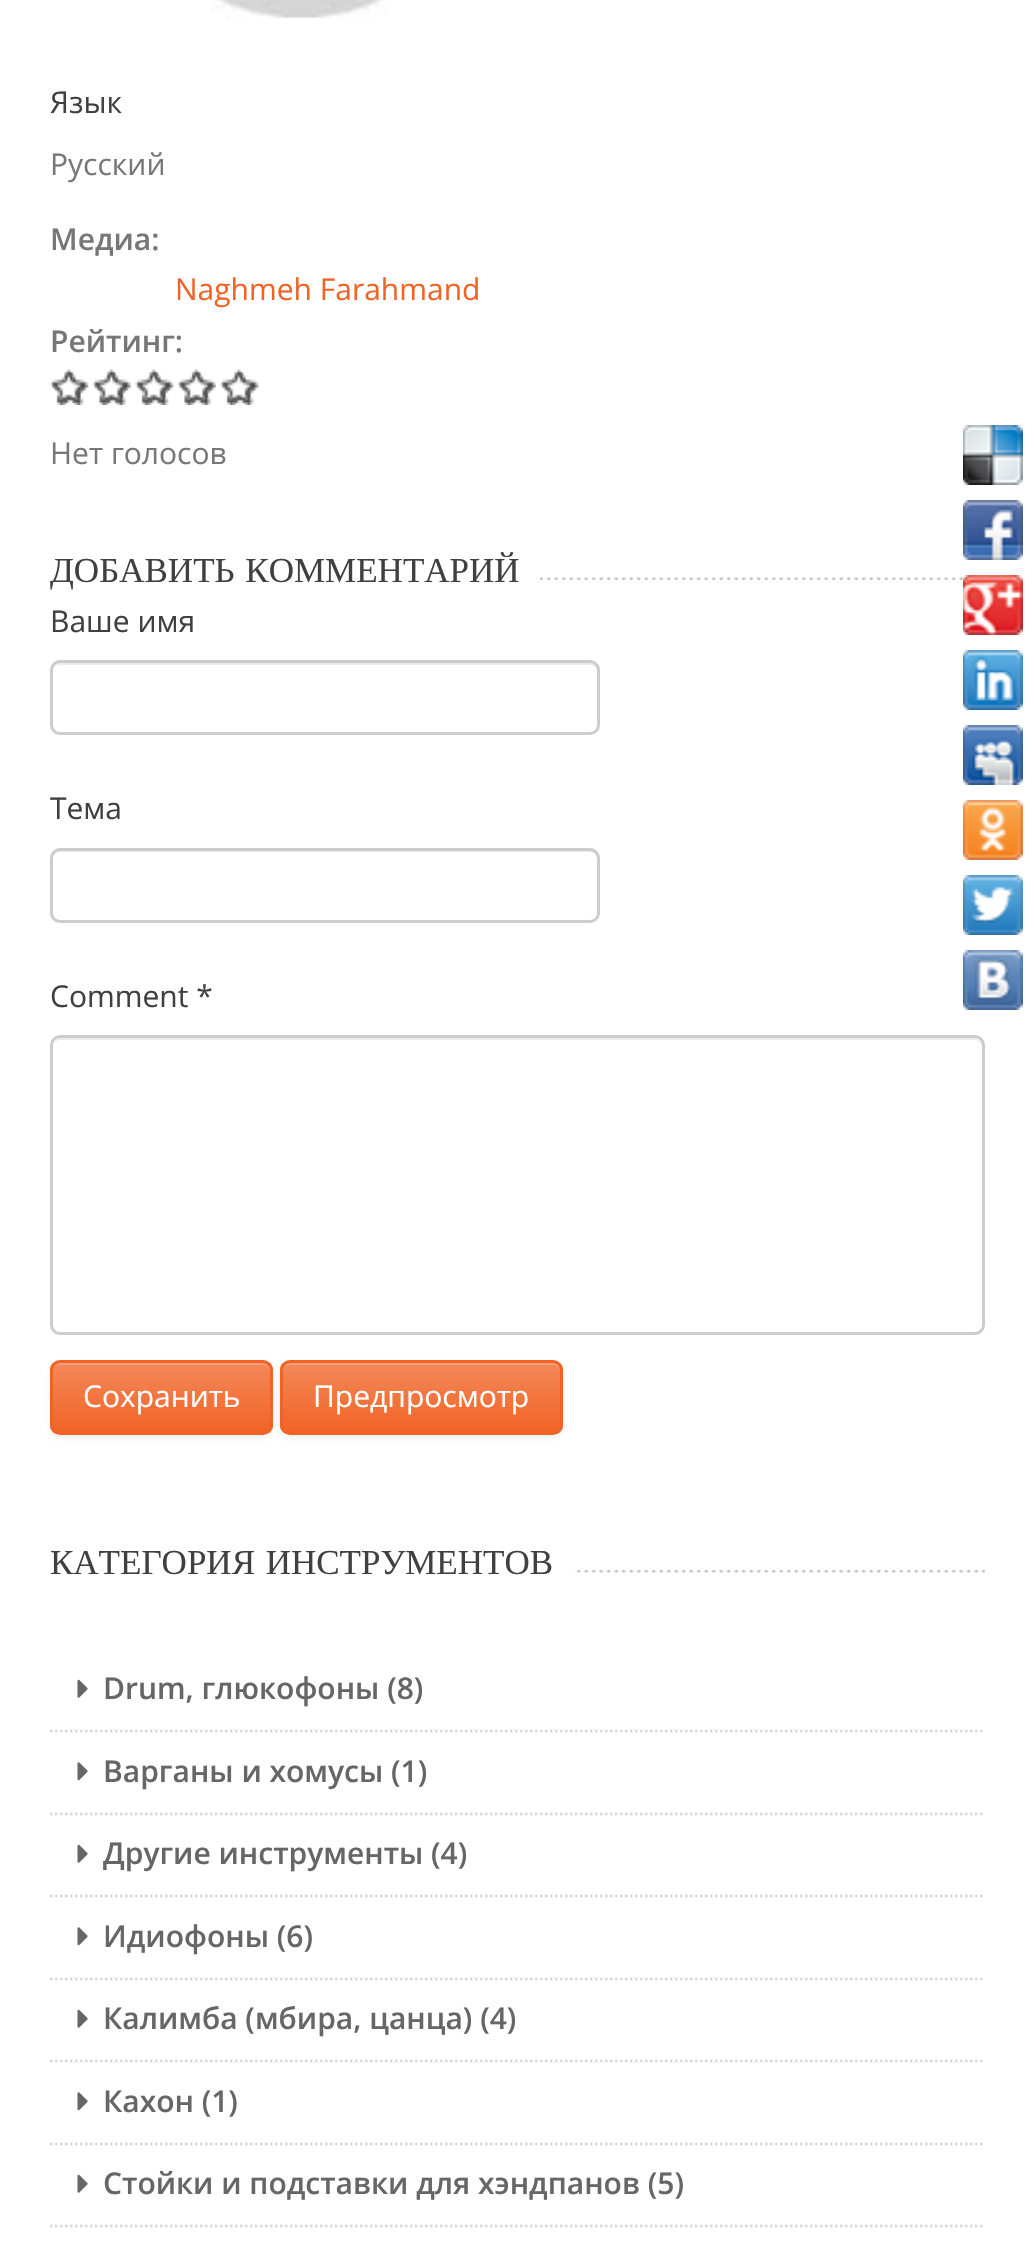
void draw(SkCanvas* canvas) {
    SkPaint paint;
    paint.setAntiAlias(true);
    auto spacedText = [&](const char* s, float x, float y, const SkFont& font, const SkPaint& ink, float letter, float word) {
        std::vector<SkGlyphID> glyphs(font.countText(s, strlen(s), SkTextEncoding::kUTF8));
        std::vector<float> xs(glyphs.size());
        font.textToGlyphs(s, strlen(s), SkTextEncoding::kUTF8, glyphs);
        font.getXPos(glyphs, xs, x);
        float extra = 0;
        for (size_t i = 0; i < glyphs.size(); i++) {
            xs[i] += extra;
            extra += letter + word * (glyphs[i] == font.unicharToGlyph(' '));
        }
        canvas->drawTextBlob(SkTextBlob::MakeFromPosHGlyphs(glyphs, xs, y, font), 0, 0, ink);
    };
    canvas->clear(0xFFFFFFFF);
    canvas->drawImageRect(SkImages::DeferredFromEncodedData(SkData::MakeFromFileName("img1.png")), SkRect::MakeXYWH(211, 0, 178, 19), SkSamplingOptions());
    SkFont font1(fontMgr->matchFamilyStyle("Open Sans", SkFontStyle::Normal()), 30);
    font1.setSubpixel(true);
    paint.setColor(0xFF404040);
    canvas->drawString("Язык", 50, 113, font1, paint);
    paint.setColor(0xFF777777);
    canvas->drawString("Русский", 50, 175, font1, paint);
    SkFont font2(fontMgr->matchFamilyStyle("Open Sans", SkFontStyle(600, SkFontStyle::kNormal_Width, SkFontStyle::kUpright_Slant)), 30);
    font2.setSubpixel(true);
    canvas->drawString("Медиа:", 50, 250, font2, paint);
    paint.setColor(0xFFF16325);
    canvas->drawString("Naghmeh Farahmand", 175, 300, font1, paint);
    paint.setColor(0xFF777777);
    canvas->drawString("Рейтинг:", 50, 352, font2, paint);
    canvas->drawImageRect(SkImages::DeferredFromEncodedData(SkData::MakeFromFileName("img2.png")), SkRect::MakeXYWH(50, 369, 39, 36), SkSamplingOptions());
    canvas->drawImageRect(SkImages::DeferredFromEncodedData(SkData::MakeFromFileName("img3.png")), SkRect::MakeXYWH(50, 369, 39, 36), SkSamplingOptions());
    canvas->drawImageRect(SkImages::DeferredFromEncodedData(SkData::MakeFromFileName("img4.png")), SkRect::MakeXYWH(92, 369, 39, 36), SkSamplingOptions());
    canvas->drawImageRect(SkImages::DeferredFromEncodedData(SkData::MakeFromFileName("img5.png")), SkRect::MakeXYWH(93, 369, 38, 36), SkSamplingOptions());
    canvas->drawImageRect(SkImages::DeferredFromEncodedData(SkData::MakeFromFileName("img2.png")), SkRect::MakeXYWH(135, 369, 39, 36), SkSamplingOptions());
    canvas->drawImageRect(SkImages::DeferredFromEncodedData(SkData::MakeFromFileName("img3.png")), SkRect::MakeXYWH(135, 369, 39, 36), SkSamplingOptions());
    canvas->drawImageRect(SkImages::DeferredFromEncodedData(SkData::MakeFromFileName("img4.png")), SkRect::MakeXYWH(177, 369, 39, 36), SkSamplingOptions());
    canvas->drawImageRect(SkImages::DeferredFromEncodedData(SkData::MakeFromFileName("img5.png")), SkRect::MakeXYWH(178, 369, 38, 36), SkSamplingOptions());
    canvas->drawImageRect(SkImages::DeferredFromEncodedData(SkData::MakeFromFileName("img2.png")), SkRect::MakeXYWH(220, 369, 39, 36), SkSamplingOptions());
    canvas->drawImageRect(SkImages::DeferredFromEncodedData(SkData::MakeFromFileName("img3.png")), SkRect::MakeXYWH(220, 369, 39, 36), SkSamplingOptions());
    canvas->drawString("Нет голосов", 50, 464, font1, paint);
    canvas->drawImageRect(SkImages::DeferredFromEncodedData(SkData::MakeFromFileName("img6.png")), SkRect::MakeXYWH(540, 577, 445, 3), SkSamplingOptions());
    SkFont font3(fontMgr->matchFamilyStyle("Liberation Serif", SkFontStyle::Normal()), 35);
    font3.setSubpixel(true);
    paint.setColor(0xFF404040);
    spacedText("ДОБАВИТЬ КОММЕНТАРИЙ", 50, 582, font3, paint, 0, 2);
    canvas->drawString("Ваше имя", 50, 632, font1, paint);
    paint.setColor(0xFFECECEC);
    canvas->drawPath(SkPathBuilder().moveTo(60, 665).lineTo(590, 665).cubicTo(594, 665, 598, 668, 598, 672).lineTo(598, 671).cubicTo(598, 667, 594, 663, 590, 663).lineTo(61, 663).cubicTo(58, 663, 55, 665, 54, 668).cubicTo(55, 666, 58, 665, 60, 665).close().detach(), paint);
    paint.setStyle(SkPaint::kStroke_Style);
    paint.setStrokeWidth(3);
    paint.setColor(0xFFCCCCCC);
    canvas->drawRoundRect(SkRect::MakeXYWH(51.5f, 661.5f, 547, 72), 8.5f, 8.5f, paint);
    paint.setStyle(SkPaint::kFill_Style);
    paint.setColor(0xFF404040);
    canvas->drawString("Тема", 50, 819, font1, paint);
    paint.setColor(0xFFECECEC);
    canvas->drawPath(SkPathBuilder().moveTo(60, 852).lineTo(590, 852).cubicTo(594, 852, 598, 856, 598, 860).lineTo(598, 858).cubicTo(598, 854, 594, 850, 590, 850).lineTo(61, 850).cubicTo(57, 850, 54, 853, 53, 856).cubicTo(55, 854, 57, 852, 60, 852).close().detach(), paint);
    paint.setStyle(SkPaint::kStroke_Style);
    paint.setColor(0xFFCCCCCC);
    canvas->drawRoundRect(SkRect::MakeXYWH(51.5f, 849.5f, 547, 72), 8.5f, 8.5f, paint);
    paint.setStyle(SkPaint::kFill_Style);
    paint.setColor(0xFF404040);
    canvas->drawString("Comment *", 50, 1007, font1, paint);
    paint.setColor(0xFFECECEC);
    canvas->drawPath(SkPathBuilder().moveTo(60, 1040).lineTo(975, 1040).cubicTo(979, 1040, 982, 1044, 982, 1048).lineTo(982, 1329).cubicTo(983, 1328, 983, 1326, 983, 1325).lineTo(983, 1046).cubicTo(983, 1042, 979, 1038, 975, 1038).lineTo(61, 1038).cubicTo(58, 1038, 55, 1040, 53, 1043).cubicTo(55, 1041, 58, 1040, 60, 1040).close().detach(), paint);
    paint.setStyle(SkPaint::kStroke_Style);
    paint.setColor(0xFFCCCCCC);
    canvas->drawRoundRect(SkRect::MakeXYWH(51.5f, 1036.5f, 932, 297), 8.5f, 8.5f, paint);
    paint.setStyle(SkPaint::kFill_Style);
    paint.setColor(0x0D000000);
    paint.setMaskFilter(SkMaskFilter::MakeBlur(kNormal_SkBlurStyle, 2.5f));
    canvas->drawRoundRect(SkRect::MakeXYWH(50, 1363, 223, 75), 10, 10, paint);
    paint.setMaskFilter(nullptr);
    canvas->save();
    canvas->clipPath(SkPathBuilder().moveTo(60, 1360).lineTo(263, 1360).cubicTo(268.5f, 1360, 273, 1364.5f, 273, 1370).lineTo(273, 1425).cubicTo(273, 1430.5f, 268.5f, 1435, 263, 1435).lineTo(60, 1435).cubicTo(54.5f, 1435, 50, 1430.5f, 50, 1425).lineTo(50, 1370).cubicTo(50, 1364.5f, 54.5f, 1360, 60, 1360).close().detach(), true);
    {
        const SkColor colors[] = {0xFFF4885A, 0xFFF16325};
        const float stops[] = {0, 1};
        const SkPoint ends[] = {{161, 1363}, {161, 1433}};
        paint.setShader(SkGradientShader::MakeLinear(ends, colors, stops, 2, SkTileMode::kClamp));
        paint.setAlpha(255);
    }
    canvas->drawRect(SkRect::MakeXYWH(50, 1363, 223, 70), paint);
    canvas->restore();
    paint.setShader(nullptr);
    paint.setColor(0x33FFFFFF);
    canvas->drawPath(SkPathBuilder().moveTo(60, 1365).lineTo(262, 1365).cubicTo(267, 1365, 270, 1368, 270, 1372).lineTo(270, 1371).cubicTo(270, 1367, 266, 1363, 262, 1363).lineTo(61, 1363).cubicTo(58, 1363, 55, 1365, 54, 1368).cubicTo(55, 1366, 58, 1365, 60, 1365).close().detach(), paint);
    paint.setStyle(SkPaint::kStroke_Style);
    paint.setColor(0xFFF16325);
    canvas->drawRoundRect(SkRect::MakeXYWH(51.5f, 1361.5f, 220, 72), 8.5f, 8.5f, paint);
    paint.setStyle(SkPaint::kFill_Style);
    paint.setColor(0xFFFFFFFF);
    canvas->drawString("Сохранить", 83, 1407, font1, paint);
    paint.setColor(0x0D000000);
    paint.setMaskFilter(SkMaskFilter::MakeBlur(kNormal_SkBlurStyle, 2.5f));
    canvas->drawRoundRect(SkRect::MakeXYWH(280, 1363, 283, 75), 10, 10, paint);
    paint.setMaskFilter(nullptr);
    canvas->save();
    canvas->clipPath(SkPathBuilder().moveTo(290, 1360).lineTo(553, 1360).cubicTo(558.5f, 1360, 563, 1364.5f, 563, 1370).lineTo(563, 1425).cubicTo(563, 1430.5f, 558.5f, 1435, 553, 1435).lineTo(290, 1435).cubicTo(284.5f, 1435, 280, 1430.5f, 280, 1425).lineTo(280, 1370).cubicTo(280, 1364.5f, 284.5f, 1360, 290, 1360).close().detach(), true);
    {
        const SkColor colors[] = {0xFFF4885A, 0xFFF16325};
        const float stops[] = {0, 1};
        const SkPoint ends[] = {{421, 1363}, {421, 1433}};
        paint.setShader(SkGradientShader::MakeLinear(ends, colors, stops, 2, SkTileMode::kClamp));
        paint.setAlpha(255);
    }
    canvas->drawRect(SkRect::MakeXYWH(280, 1363, 283, 70), paint);
    canvas->restore();
    paint.setShader(nullptr);
    paint.setColor(0x33FFFFFF);
    canvas->drawPath(SkPathBuilder().moveTo(290, 1365).lineTo(552, 1365).cubicTo(557, 1365, 560, 1368, 560, 1372).cubicTo(560, 1367, 557, 1363, 552, 1363).lineTo(290, 1363).cubicTo(287, 1363, 285, 1365, 284, 1368).cubicTo(285, 1366, 288, 1365, 290, 1365).close().detach(), paint);
    paint.setStyle(SkPaint::kStroke_Style);
    paint.setColor(0xFFF16325);
    canvas->drawRoundRect(SkRect::MakeXYWH(281.5f, 1361.5f, 280, 72), 8.5f, 8.5f, paint);
    paint.setStyle(SkPaint::kFill_Style);
    paint.setColor(0xFFFFFFFF);
    canvas->drawString("Предпросмотр", 313, 1407, font1, paint);
    canvas->drawImageRect(SkImages::DeferredFromEncodedData(SkData::MakeFromFileName("img7.png")), SkRect::MakeXYWH(573, 1570, 412, 3), SkSamplingOptions());
    paint.setColor(0xFF404040);
    spacedText("КАТЕГОРИЯ ИНСТРУМЕНТОВ", 50, 1574, font3, paint, 0, 2);
    paint.setStyle(SkPaint::kStroke_Style);
    paint.setStrokeWidth(2.5f);
    paint.setColor(0xFFD6D6D6);
    paint.setPathEffect(SkDashPathEffect::Make({{2.5f, 2.5f}}, 0));
    canvas->drawPath(SkPathBuilder().moveTo(50, 1731).lineTo(985, 1731).detach(), paint);
    paint.setPathEffect(nullptr);
    canvas->drawImageRect(SkImages::DeferredFromEncodedData(SkData::MakeFromFileName("img8.png")), SkRect::MakeXYWH(77, 1679, 11, 19), SkSamplingOptions());
    paint.setStyle(SkPaint::kFill_Style);
    paint.setColor(0xFF666666);
    canvas->drawString("Drum, глюкофоны (8)", 103, 1699, font2, paint);
    paint.setStyle(SkPaint::kStroke_Style);
    paint.setColor(0xFFD6D6D6);
    paint.setPathEffect(SkDashPathEffect::Make({{2.5f, 2.5f}}, 0));
    canvas->drawPath(SkPathBuilder().moveTo(50, 1814).lineTo(985, 1814).detach(), paint);
    paint.setPathEffect(nullptr);
    canvas->drawImageRect(SkImages::DeferredFromEncodedData(SkData::MakeFromFileName("img9.png")), SkRect::MakeXYWH(77, 1762, 11, 19), SkSamplingOptions());
    paint.setStyle(SkPaint::kFill_Style);
    paint.setColor(0xFF666666);
    canvas->drawString("Варганы и хомусы (1)", 103, 1782, font2, paint);
    paint.setStyle(SkPaint::kStroke_Style);
    paint.setColor(0xFFD6D6D6);
    paint.setPathEffect(SkDashPathEffect::Make({{2.5f, 2.5f}}, 0));
    canvas->drawPath(SkPathBuilder().moveTo(50, 1896).lineTo(985, 1896).detach(), paint);
    paint.setPathEffect(nullptr);
    canvas->drawImageRect(SkImages::DeferredFromEncodedData(SkData::MakeFromFileName("img8.png")), SkRect::MakeXYWH(77, 1844, 11, 19), SkSamplingOptions());
    paint.setStyle(SkPaint::kFill_Style);
    paint.setColor(0xFF666666);
    canvas->drawString("Другие инструменты (4)", 103, 1864, font2, paint);
    paint.setStyle(SkPaint::kStroke_Style);
    paint.setColor(0xFFD6D6D6);
    paint.setPathEffect(SkDashPathEffect::Make({{2.5f, 2.5f}}, 0));
    canvas->drawPath(SkPathBuilder().moveTo(50, 1979).lineTo(985, 1979).detach(), paint);
    paint.setPathEffect(nullptr);
    canvas->drawImageRect(SkImages::DeferredFromEncodedData(SkData::MakeFromFileName("img9.png")), SkRect::MakeXYWH(77, 1927, 11, 19), SkSamplingOptions());
    paint.setStyle(SkPaint::kFill_Style);
    paint.setColor(0xFF666666);
    canvas->drawString("Идиофоны (6)", 103, 1947, font2, paint);
    paint.setStyle(SkPaint::kStroke_Style);
    paint.setColor(0xFFD6D6D6);
    paint.setPathEffect(SkDashPathEffect::Make({{2.5f, 2.5f}}, 0));
    canvas->drawPath(SkPathBuilder().moveTo(50, 2061).lineTo(985, 2061).detach(), paint);
    paint.setPathEffect(nullptr);
    canvas->drawImageRect(SkImages::DeferredFromEncodedData(SkData::MakeFromFileName("img8.png")), SkRect::MakeXYWH(77, 2009, 11, 19), SkSamplingOptions());
    paint.setStyle(SkPaint::kFill_Style);
    paint.setColor(0xFF666666);
    canvas->drawString("Калимба (мбира, цанца) (4)", 103, 2029, font2, paint);
    paint.setStyle(SkPaint::kStroke_Style);
    paint.setColor(0xFFD6D6D6);
    paint.setPathEffect(SkDashPathEffect::Make({{2.5f, 2.5f}}, 0));
    canvas->drawPath(SkPathBuilder().moveTo(50, 2144).lineTo(985, 2144).detach(), paint);
    paint.setPathEffect(nullptr);
    canvas->drawImageRect(SkImages::DeferredFromEncodedData(SkData::MakeFromFileName("img9.png")), SkRect::MakeXYWH(77, 2092, 11, 19), SkSamplingOptions());
    paint.setStyle(SkPaint::kFill_Style);
    paint.setColor(0xFF666666);
    canvas->drawString("Кахон (1)", 103, 2112, font2, paint);
    paint.setStyle(SkPaint::kStroke_Style);
    paint.setColor(0xFFD6D6D6);
    paint.setPathEffect(SkDashPathEffect::Make({{2.5f, 2.5f}}, 0));
    canvas->drawPath(SkPathBuilder().moveTo(50, 2226).lineTo(985, 2226).detach(), paint);
    paint.setPathEffect(nullptr);
    canvas->drawImageRect(SkImages::DeferredFromEncodedData(SkData::MakeFromFileName("img8.png")), SkRect::MakeXYWH(77, 2174, 11, 19), SkSamplingOptions());
    paint.setStyle(SkPaint::kFill_Style);
    paint.setColor(0xFF666666);
    canvas->drawString("Стойки и подставки для хэндпанов (5)", 103, 2194, font2, paint);
    canvas->drawImageRect(SkImages::DeferredFromEncodedData(SkData::MakeFromFileName("img10.png")), SkRect::MakeXYWH(963, 425, 60, 60), SkSamplingOptions());
    canvas->drawImageRect(SkImages::DeferredFromEncodedData(SkData::MakeFromFileName("img11.png")), SkRect::MakeXYWH(963, 500, 60, 60), SkSamplingOptions());
    canvas->drawImageRect(SkImages::DeferredFromEncodedData(SkData::MakeFromFileName("img12.png")), SkRect::MakeXYWH(963, 575, 60, 60), SkSamplingOptions());
    canvas->drawImageRect(SkImages::DeferredFromEncodedData(SkData::MakeFromFileName("img13.png")), SkRect::MakeXYWH(963, 650, 60, 60), SkSamplingOptions());
    canvas->drawImageRect(SkImages::DeferredFromEncodedData(SkData::MakeFromFileName("img14.png")), SkRect::MakeXYWH(963, 725, 60, 60), SkSamplingOptions());
    canvas->drawImageRect(SkImages::DeferredFromEncodedData(SkData::MakeFromFileName("img15.png")), SkRect::MakeXYWH(963, 800, 60, 60), SkSamplingOptions());
    canvas->drawImageRect(SkImages::DeferredFromEncodedData(SkData::MakeFromFileName("img16.png")), SkRect::MakeXYWH(963, 875, 60, 60), SkSamplingOptions());
    canvas->drawImageRect(SkImages::DeferredFromEncodedData(SkData::MakeFromFileName("img17.png")), SkRect::MakeXYWH(963, 950, 60, 60), SkSamplingOptions());
}
